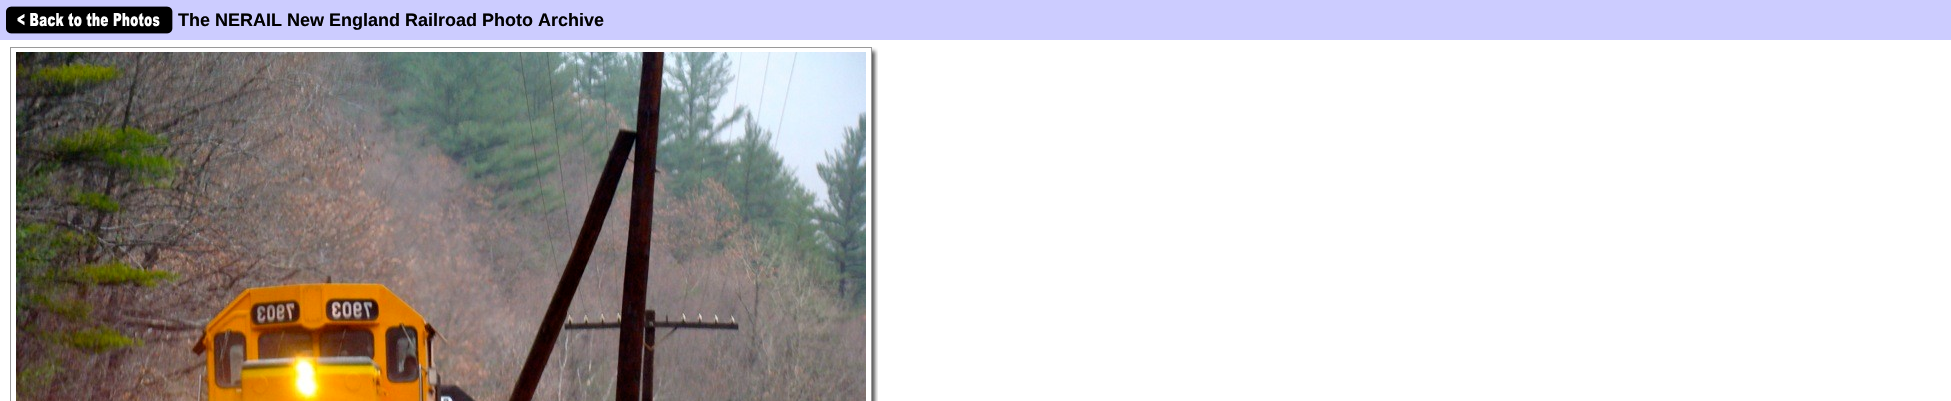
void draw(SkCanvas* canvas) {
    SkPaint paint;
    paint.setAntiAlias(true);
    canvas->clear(0xFFFFFFFF);
    paint.setColor(0xFFCCCCFF);
    canvas->drawRect(SkRect::MakeXYWH(0, 0, 1951, 40), paint);
    canvas->drawImageRect(SkImages::DeferredFromEncodedData(SkData::MakeFromFileName("img1.png")), SkRect::MakeXYWH(6, 6, 167, 28), SkSamplingOptions());
    SkFont font1(fontMgr->matchFamilyStyle("Liberation Sans", SkFontStyle::Bold()), 18);
    font1.setSubpixel(true);
    paint.setColor(0xFF000000);
    canvas->drawString("The NERAIL New England Railroad Photo Archive", 178, 26, font1, paint);
    paint.setStyle(SkPaint::kStroke_Style);
    paint.setStrokeWidth(1);
    paint.setColor(0xFF9A9A9A);
    canvas->drawRect(SkRect::MakeXYWH(10.5f, 47.5f, 861, 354), paint);
    canvas->drawImageRect(SkImages::DeferredFromEncodedData(SkData::MakeFromFileName("img2.png")), SkRect::MakeXYWH(16, 52, 850, 349), SkSamplingOptions());
    canvas->drawImageRect(SkImages::DeferredFromEncodedData(SkData::MakeFromFileName("img3.png")), SkRect::MakeXYWH(872, 47, 6, 354), SkSamplingOptions());
}
